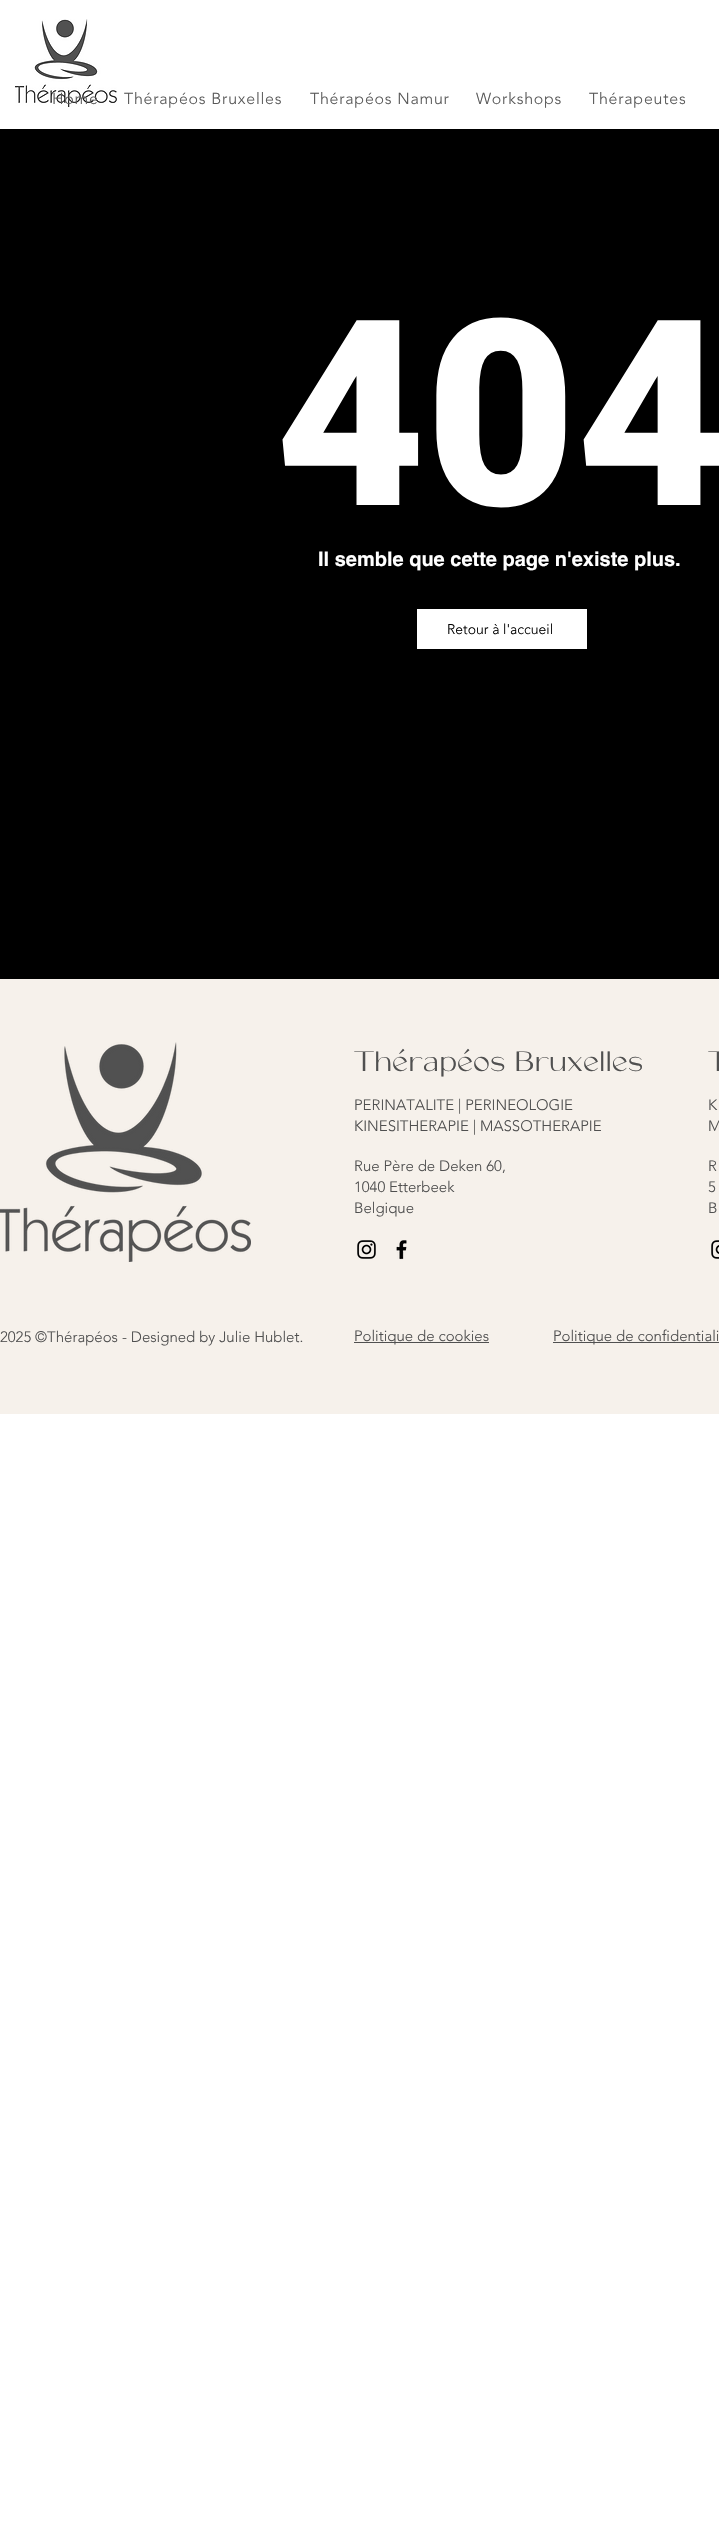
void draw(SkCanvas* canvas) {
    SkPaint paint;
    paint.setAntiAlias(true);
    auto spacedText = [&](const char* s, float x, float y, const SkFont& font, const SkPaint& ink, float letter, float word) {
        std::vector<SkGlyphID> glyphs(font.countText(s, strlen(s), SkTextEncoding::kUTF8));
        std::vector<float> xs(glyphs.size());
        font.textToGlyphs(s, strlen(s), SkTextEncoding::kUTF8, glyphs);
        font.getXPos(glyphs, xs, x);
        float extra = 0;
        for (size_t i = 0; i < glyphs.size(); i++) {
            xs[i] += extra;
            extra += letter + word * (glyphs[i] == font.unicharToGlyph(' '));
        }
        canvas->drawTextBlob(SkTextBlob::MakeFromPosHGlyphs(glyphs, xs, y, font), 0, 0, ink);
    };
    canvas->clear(0xFFFFFFFF);
    canvas->drawImageRect(SkImages::DeferredFromEncodedData(SkData::MakeFromFileName("img1.png")), SkRect::MakeXYWH(15, 19, 102, 88), SkSamplingOptions());
    SkFont font1(fontMgr->matchFamilyStyle("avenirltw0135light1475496", SkFontStyle(300, SkFontStyle::kNormal_Width, SkFontStyle::kUpright_Slant)), 16);
    font1.setSubpixel(true);
    paint.setColor(0xFF595959);
    spacedText("Home", 52, 104, font1, paint, 0.75f, 0);
    spacedText("Thérapéos Bruxelles", 124, 104, font1, paint, 0.75f, 0);
    spacedText("Thérapéos Namur", 310, 104, font1, paint, 0.75f, 0);
    spacedText("Workshops", 476, 104, font1, paint, 0.75f, 0);
    spacedText("Thérapeutes", 589, 104, font1, paint, 0.75f, 0);
    paint.setColor(0xFF000000);
    canvas->drawRect(SkRect::MakeXYWH(0, 129, 719, 850), paint);
    SkFont font2(fontMgr->matchFamilyStyle("Roboto", SkFontStyle(900, SkFontStyle::kNormal_Width, SkFontStyle::kUpright_Slant)), 260);
    font2.setSubpixel(true);
    paint.setColor(0xFFFFFFFF);
    canvas->drawString("404", 275, 505, font2, paint);
    SkFont font3(fontMgr->matchFamilyStyle("helvetica", SkFontStyle::Bold()), 20);
    font3.setSubpixel(true);
    canvas->drawString("Il semble que cette page n'existe plus.", 318, 566, font3, paint);
    canvas->drawRect(SkRect::MakeXYWH(417, 609, 170, 40), paint);
    SkFont font4(fontMgr->matchFamilyStyle("avenirltw0135light1475496", SkFontStyle(300, SkFontStyle::kNormal_Width, SkFontStyle::kUpright_Slant)), 14);
    font4.setSubpixel(true);
    paint.setColor(0xFF000000);
    canvas->drawString("Retour à l'accueil", 447, 634, font4, paint);
    paint.setColor(0xFFF6F1EB);
    canvas->drawRect(SkRect::MakeXYWH(0, 979, 719, 435), paint);
    canvas->drawImageRect(SkImages::DeferredFromEncodedData(SkData::MakeFromFileName("img2.png")), SkRect::MakeXYWH(0, 1042, 251, 220), SkSamplingOptions());
    SkFont font5(fontMgr->matchFamilyStyle("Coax", SkFontStyle::Normal()), 28);
    font5.setSubpixel(true);
    paint.setColor(0xFF505050);
    canvas->drawString("Thérapéos Bruxelles", 354, 1071, font5, paint);
    SkFont font6(fontMgr->matchFamilyStyle("avenirltw0135light1475496", SkFontStyle(300, SkFontStyle::kNormal_Width, SkFontStyle::kUpright_Slant)), 15);
    font6.setSubpixel(true);
    canvas->drawString("PERINATALITE | PERINEOLOGIE", 354, 1110, font6, paint);
    canvas->drawString("KINESITHERAPIE | MASSOTHERAPIE", 354, 1131, font6, paint);
    canvas->drawString("Rue Père de Deken 60,", 354, 1171, font6, paint);
    canvas->drawString("1040 Etterbeek", 354, 1192, font6, paint);
    canvas->drawString("Belgique", 354, 1213, font6, paint);
    canvas->drawImageRect(SkImages::DeferredFromEncodedData(SkData::MakeFromFileName("img3.png")), SkRect::MakeXYWH(357, 1240, 19, 19), SkSamplingOptions());
    canvas->drawImageRect(SkImages::DeferredFromEncodedData(SkData::MakeFromFileName("img4.png")), SkRect::MakeXYWH(396, 1240, 11, 20), SkSamplingOptions());
    canvas->drawString("T", 708, 1071, font5, paint);
    canvas->drawString("K", 708, 1110, font6, paint);
    canvas->drawString("M", 708, 1131, font6, paint);
    canvas->drawString("R", 708, 1171, font6, paint);
    canvas->drawString("5", 708, 1192, font6, paint);
    canvas->drawString("B", 708, 1213, font6, paint);
    canvas->drawImageRect(SkImages::DeferredFromEncodedData(SkData::MakeFromFileName("img5.png")), SkRect::MakeXYWH(711, 1240, 8, 19), SkSamplingOptions());
    canvas->drawString("2025 ©Thérapéos - Designed by Julie Hublet.", 0, 1342, font6, paint);
    canvas->drawRect(SkRect::MakeXYWH(354, 1342, 135, 1), paint);
    canvas->drawString("Politique de cookies", 354, 1341, font6, paint);
    canvas->drawRect(SkRect::MakeXYWH(553, 1342, 166, 1), paint);
    canvas->drawString("Politique de confidentiali", 553, 1341, font6, paint);
}
